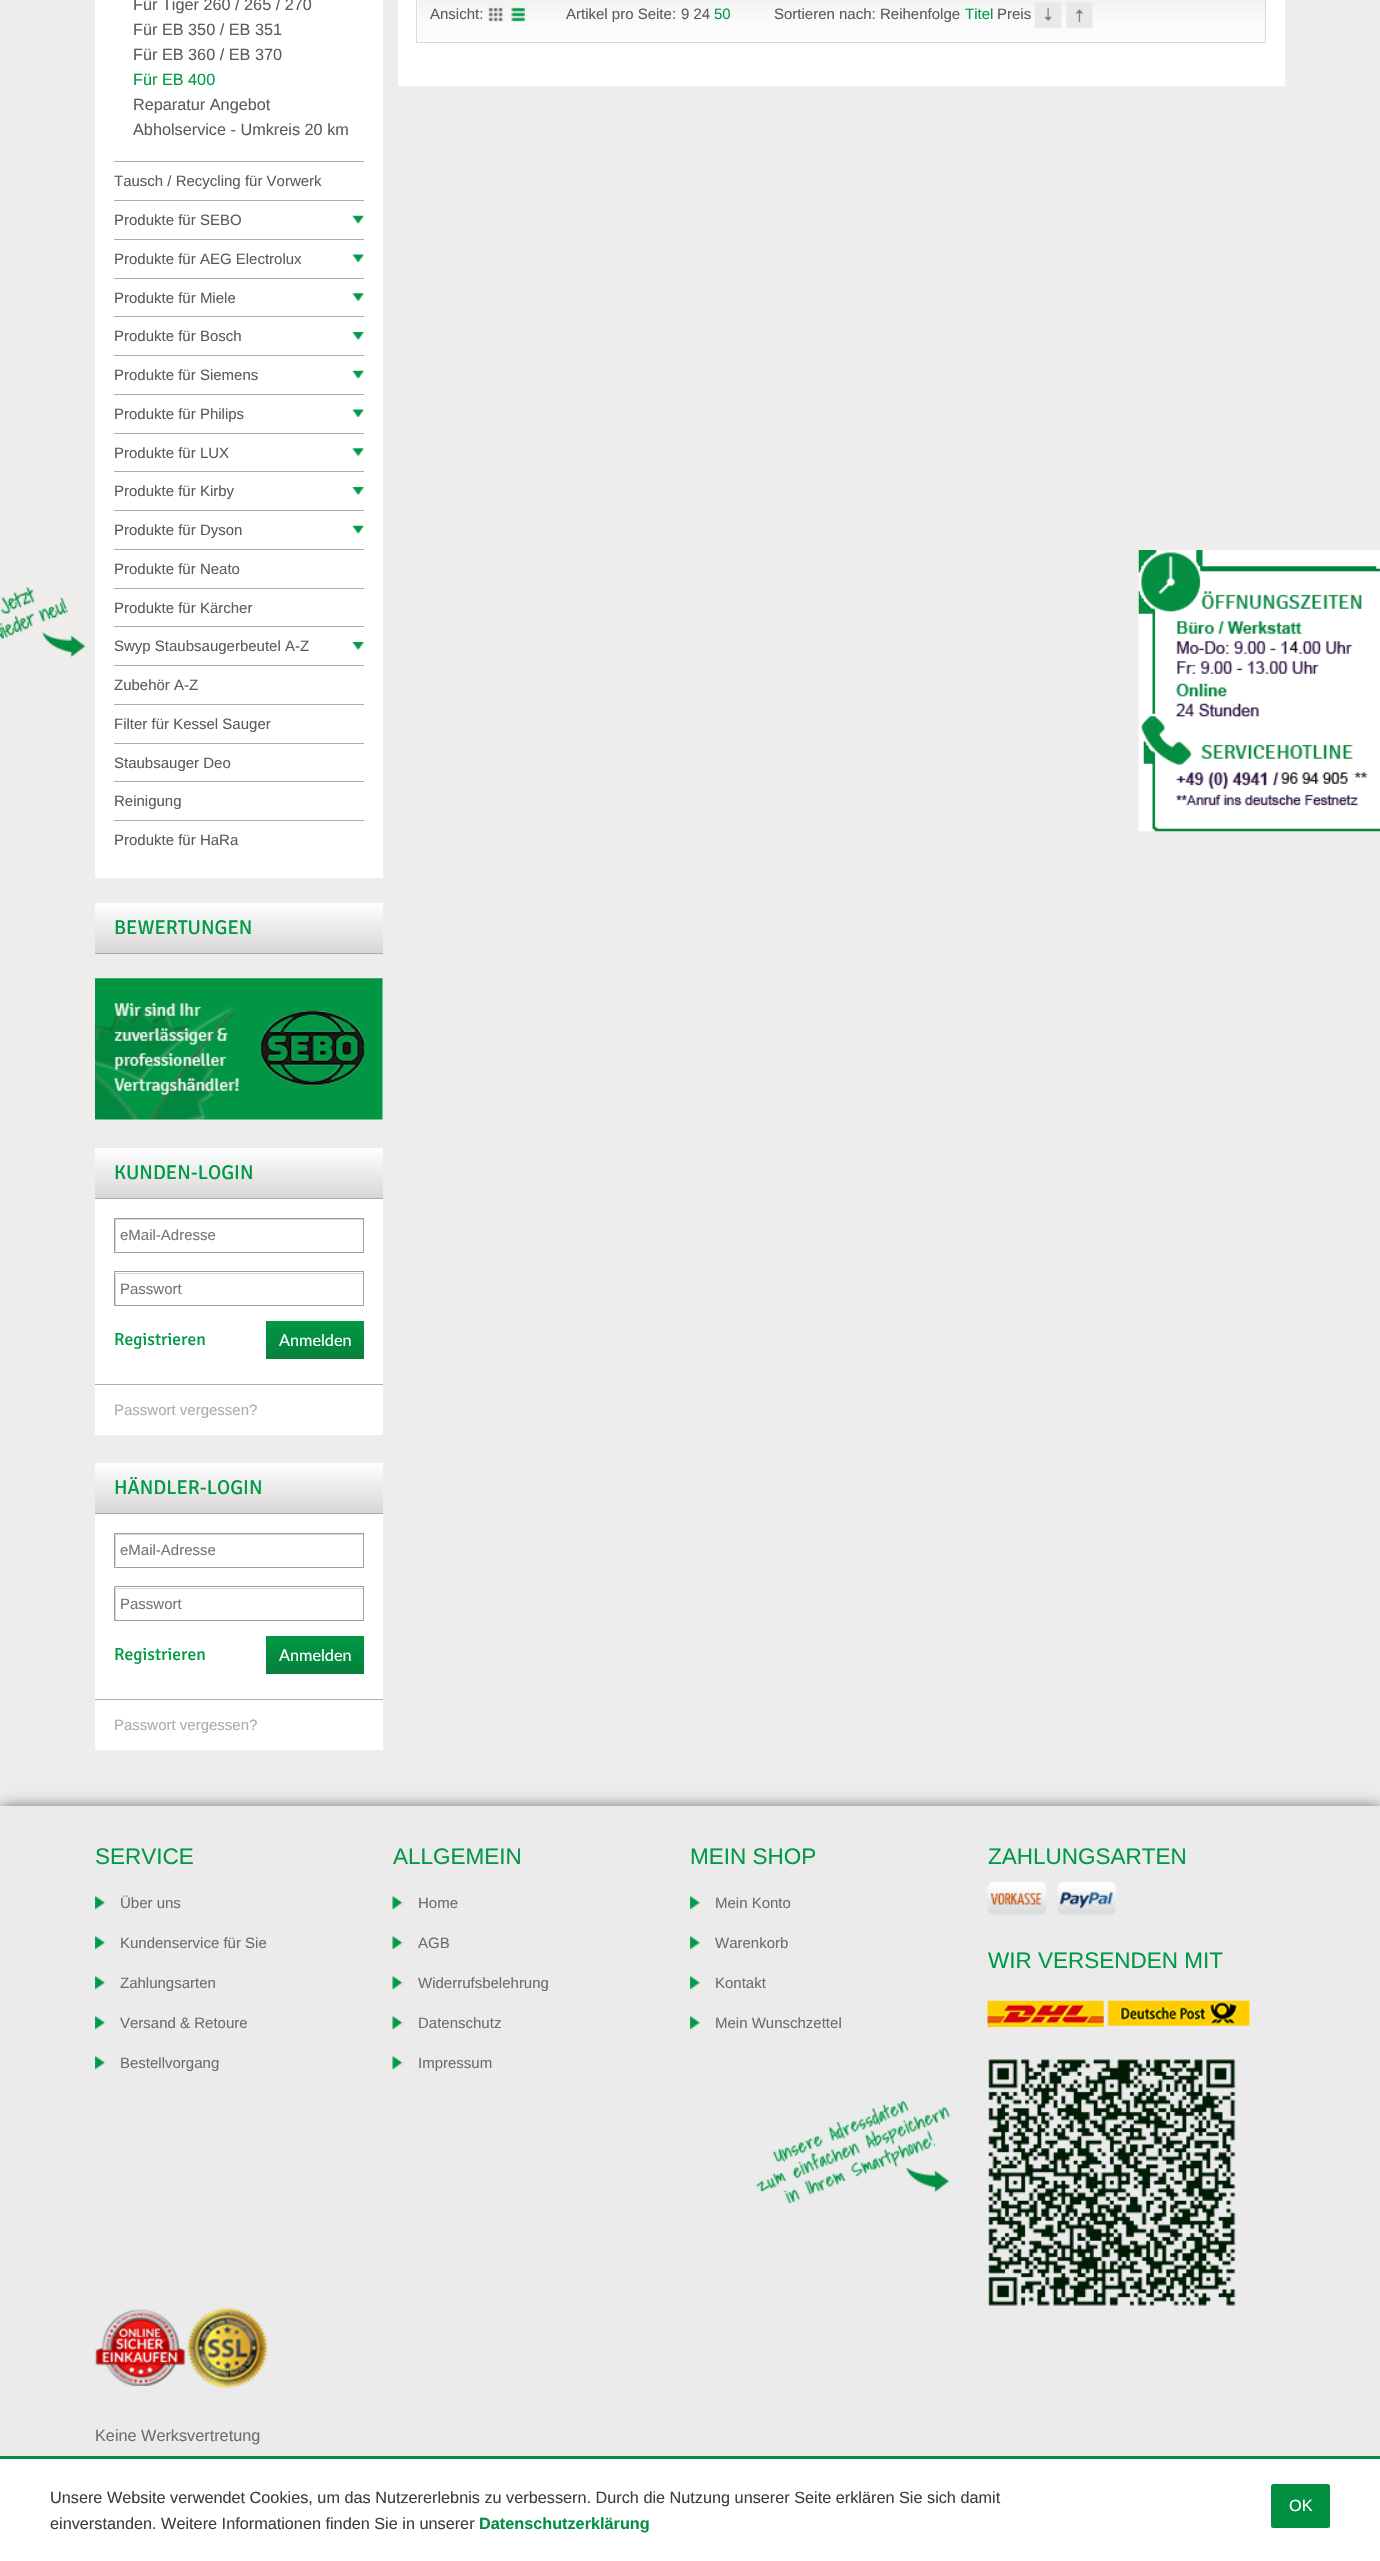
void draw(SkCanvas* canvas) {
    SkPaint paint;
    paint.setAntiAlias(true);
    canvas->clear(0xFFEFECEC);
    paint.setColor(0xFFFFFFFF);
    canvas->drawRect(SkRect::MakeXYWH(95, 0, 288, 878), paint);
    SkFont font1(fontMgr->matchFamilyStyle("Liberation Sans", SkFontStyle::Normal()), 16.25f);
    font1.setSubpixel(true);
    paint.setColor(0xFF5C5C5C);
    canvas->drawString("Für Tiger 260 / 265 / 270", 133, 10, font1, paint);
    canvas->drawString("Für EB 350 / EB 351", 133, 35, font1, paint);
    canvas->drawString("Für EB 360 / EB 370", 133, 60, font1, paint);
    paint.setColor(0xFF009945);
    canvas->drawString("Für EB 400", 133, 85, font1, paint);
    paint.setColor(0xFF5C5C5C);
    canvas->drawString("Reparatur Angebot", 133, 110, font1, paint);
    canvas->drawString("Abholservice - Umkreis 20 km", 133, 135, font1, paint);
    paint.setColor(0xFFACACAC);
    canvas->drawRect(SkRect::MakeXYWH(114, 161, 250, 1), paint);
    SkFont font2(fontMgr->matchFamilyStyle("Liberation Sans", SkFontStyle::Normal()), 15);
    font2.setSubpixel(true);
    paint.setColor(0xFF5C5C5C);
    canvas->drawString("Tausch / Recycling für Vorwerk", 114, 186, font2, paint);
    paint.setColor(0xFFACACAC);
    canvas->drawRect(SkRect::MakeXYWH(114, 200, 250, 1), paint);
    canvas->drawImageRect(SkImages::DeferredFromEncodedData(SkData::MakeFromFileName("img1.png")), SkRect::MakeXYWH(352, 215, 12, 9), SkSamplingOptions());
    paint.setColor(0xFF5C5C5C);
    canvas->drawString("Produkte für SEBO", 114, 225, font2, paint);
    paint.setColor(0xFFACACAC);
    canvas->drawRect(SkRect::MakeXYWH(114, 239, 250, 1), paint);
    canvas->drawImageRect(SkImages::DeferredFromEncodedData(SkData::MakeFromFileName("img2.png")), SkRect::MakeXYWH(352, 254, 12, 8), SkSamplingOptions());
    paint.setColor(0xFF5C5C5C);
    canvas->drawString("Produkte für AEG Electrolux", 114, 264, font2, paint);
    paint.setColor(0xFFACACAC);
    canvas->drawRect(SkRect::MakeXYWH(114, 278, 250, 1), paint);
    canvas->drawImageRect(SkImages::DeferredFromEncodedData(SkData::MakeFromFileName("img3.png")), SkRect::MakeXYWH(352, 293, 12, 8), SkSamplingOptions());
    paint.setColor(0xFF5C5C5C);
    canvas->drawString("Produkte für Miele", 114, 303, font2, paint);
    paint.setColor(0xFFACACAC);
    canvas->drawRect(SkRect::MakeXYWH(114, 316, 250, 1), paint);
    canvas->drawImageRect(SkImages::DeferredFromEncodedData(SkData::MakeFromFileName("img4.png")), SkRect::MakeXYWH(352, 332, 12, 8), SkSamplingOptions());
    paint.setColor(0xFF5C5C5C);
    canvas->drawString("Produkte für Bosch", 114, 341, font2, paint);
    paint.setColor(0xFFACACAC);
    canvas->drawRect(SkRect::MakeXYWH(114, 355, 250, 1), paint);
    canvas->drawImageRect(SkImages::DeferredFromEncodedData(SkData::MakeFromFileName("img1.png")), SkRect::MakeXYWH(352, 370, 12, 9), SkSamplingOptions());
    paint.setColor(0xFF5C5C5C);
    canvas->drawString("Produkte für Siemens", 114, 380, font2, paint);
    paint.setColor(0xFFACACAC);
    canvas->drawRect(SkRect::MakeXYWH(114, 394, 250, 1), paint);
    canvas->drawImageRect(SkImages::DeferredFromEncodedData(SkData::MakeFromFileName("img2.png")), SkRect::MakeXYWH(352, 409, 12, 8), SkSamplingOptions());
    paint.setColor(0xFF5C5C5C);
    canvas->drawString("Produkte für Philips", 114, 419, font2, paint);
    paint.setColor(0xFFACACAC);
    canvas->drawRect(SkRect::MakeXYWH(114, 433, 250, 1), paint);
    canvas->drawImageRect(SkImages::DeferredFromEncodedData(SkData::MakeFromFileName("img3.png")), SkRect::MakeXYWH(352, 448, 12, 8), SkSamplingOptions());
    paint.setColor(0xFF5C5C5C);
    canvas->drawString("Produkte für LUX", 114, 458, font2, paint);
    paint.setColor(0xFFACACAC);
    canvas->drawRect(SkRect::MakeXYWH(114, 471, 250, 1), paint);
    canvas->drawImageRect(SkImages::DeferredFromEncodedData(SkData::MakeFromFileName("img4.png")), SkRect::MakeXYWH(352, 487, 12, 8), SkSamplingOptions());
    paint.setColor(0xFF5C5C5C);
    canvas->drawString("Produkte für Kirby", 114, 496, font2, paint);
    paint.setColor(0xFFACACAC);
    canvas->drawRect(SkRect::MakeXYWH(114, 510, 250, 1), paint);
    canvas->drawImageRect(SkImages::DeferredFromEncodedData(SkData::MakeFromFileName("img1.png")), SkRect::MakeXYWH(352, 525, 12, 9), SkSamplingOptions());
    paint.setColor(0xFF5C5C5C);
    canvas->drawString("Produkte für Dyson", 114, 535, font2, paint);
    paint.setColor(0xFFACACAC);
    canvas->drawRect(SkRect::MakeXYWH(114, 549, 250, 1), paint);
    paint.setColor(0xFF5C5C5C);
    canvas->drawString("Produkte für Neato", 114, 574, font2, paint);
    paint.setColor(0xFFACACAC);
    canvas->drawRect(SkRect::MakeXYWH(114, 588, 250, 1), paint);
    paint.setColor(0xFF5C5C5C);
    canvas->drawString("Produkte für Kärcher", 114, 613, font2, paint);
    paint.setColor(0xFFACACAC);
    canvas->drawRect(SkRect::MakeXYWH(114, 626, 250, 1), paint);
    canvas->drawImageRect(SkImages::DeferredFromEncodedData(SkData::MakeFromFileName("img5.png")), SkRect::MakeXYWH(0, 587, 86, 70), SkSamplingOptions());
    canvas->drawImageRect(SkImages::DeferredFromEncodedData(SkData::MakeFromFileName("img4.png")), SkRect::MakeXYWH(352, 642, 12, 8), SkSamplingOptions());
    paint.setColor(0xFF5C5C5C);
    canvas->drawString("Swyp Staubsaugerbeutel A-Z", 114, 651, font2, paint);
    paint.setColor(0xFFACACAC);
    canvas->drawRect(SkRect::MakeXYWH(114, 665, 250, 1), paint);
    paint.setColor(0xFF5C5C5C);
    canvas->drawString("Zubehör A-Z", 114, 690, font2, paint);
    paint.setColor(0xFFACACAC);
    canvas->drawRect(SkRect::MakeXYWH(114, 704, 250, 1), paint);
    paint.setColor(0xFF5C5C5C);
    canvas->drawString("Filter für Kessel Sauger", 114, 729, font2, paint);
    paint.setColor(0xFFACACAC);
    canvas->drawRect(SkRect::MakeXYWH(114, 743, 250, 1), paint);
    paint.setColor(0xFF5C5C5C);
    canvas->drawString("Staubsauger Deo", 114, 768, font2, paint);
    paint.setColor(0xFFACACAC);
    canvas->drawRect(SkRect::MakeXYWH(114, 781, 250, 1), paint);
    paint.setColor(0xFF5C5C5C);
    canvas->drawString("Reinigung", 114, 806, font2, paint);
    paint.setColor(0xFFACACAC);
    canvas->drawRect(SkRect::MakeXYWH(114, 820, 250, 1), paint);
    paint.setColor(0xFF5C5C5C);
    canvas->drawString("Produkte für HaRa", 114, 845, font2, paint);
    {
        const SkColor colors[] = {0xFFD9D6D6, 0xFFFFFFFF};
        const float stops[] = {0, 1};
        const SkPoint ends[] = {{239, 953}, {239, 903}};
        paint.setShader(SkGradientShader::MakeLinear(ends, colors, stops, 2, SkTileMode::kClamp));
        paint.setAlpha(255);
    }
    canvas->drawRect(SkRect::MakeXYWH(95, 903, 288, 50), paint);
    paint.setShader(nullptr);
    paint.setColor(0xFFACACAC);
    canvas->drawRect(SkRect::MakeXYWH(95, 953, 288, 1), paint);
    SkFont font3(fontMgr->matchFamilyStyle("Signika", SkFontStyle::Normal()), 20);
    font3.setSubpixel(true);
    paint.setColor(0xFF009945);
    canvas->drawString("BEWERTUNGEN", 114, 934, font3, paint);
    canvas->drawImageRect(SkImages::DeferredFromEncodedData(SkData::MakeFromFileName("img6.png")), SkRect::MakeXYWH(95, 978, 288, 142), SkSamplingOptions());
    paint.setColor(0xFFFFFFFF);
    canvas->drawRect(SkRect::MakeXYWH(95, 1199, 288, 236), paint);
    {
        const SkColor colors[] = {0xFFD9D6D6, 0xFFFFFFFF};
        const float stops[] = {0, 1};
        const SkPoint ends[] = {{239, 1198}, {239, 1148}};
        paint.setShader(SkGradientShader::MakeLinear(ends, colors, stops, 2, SkTileMode::kClamp));
        paint.setAlpha(255);
    }
    canvas->drawRect(SkRect::MakeXYWH(95, 1148, 288, 50), paint);
    paint.setShader(nullptr);
    paint.setColor(0xFFACACAC);
    canvas->drawRect(SkRect::MakeXYWH(95, 1198, 288, 1), paint);
    paint.setColor(0xFF009945);
    canvas->drawString("KUNDEN-LOGIN", 114, 1179, font3, paint);
    canvas->save();
    canvas->clipRect(SkRect::MakeXYWH(115, 1219, 248, 32));
    paint.setColor(0xFFD7D7D7);
    canvas->drawPath(SkPathBuilder(SkPathFillType::kEvenOdd).moveTo(-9, 1095).lineTo(486, 1095).lineTo(486, 1375).lineTo(-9, 1375).close().moveTo(116, 1220).lineTo(364, 1220).lineTo(364, 1252).lineTo(116, 1252).close().detach(), paint);
    canvas->restore();
    paint.setStyle(SkPaint::kStroke_Style);
    paint.setStrokeWidth(1);
    paint.setColor(0xFF9F9F9F);
    canvas->drawRect(SkRect::MakeXYWH(114.5f, 1218.5f, 249, 34), paint);
    paint.setStyle(SkPaint::kFill_Style);
    paint.setColor(0xFF757575);
    canvas->drawString("eMail-Adresse", 120, 1240, font2, paint);
    canvas->save();
    canvas->clipRect(SkRect::MakeXYWH(115, 1273, 248, 32));
    paint.setColor(0xFFD7D7D7);
    canvas->drawPath(SkPathBuilder(SkPathFillType::kEvenOdd).moveTo(-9, 1149).lineTo(486, 1149).lineTo(486, 1429).lineTo(-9, 1429).close().moveTo(116, 1274).lineTo(364, 1274).lineTo(364, 1306).lineTo(116, 1306).close().detach(), paint);
    canvas->restore();
    paint.setStyle(SkPaint::kStroke_Style);
    paint.setColor(0xFF9F9F9F);
    canvas->drawRect(SkRect::MakeXYWH(114.5f, 1271.5f, 249, 34), paint);
    paint.setStyle(SkPaint::kFill_Style);
    paint.setColor(0xFF757575);
    canvas->drawString("Passwort", 120, 1294, font2, paint);
    SkFont font4(fontMgr->matchFamilyStyle("Signika", SkFontStyle::Normal()), 17.5f);
    font4.setSubpixel(true);
    paint.setColor(0xFF009945);
    canvas->drawString("Registrieren", 114, 1345, font4, paint);
    {
        const SkColor colors[] = {0xFF06803C, 0xFF009945};
        const float stops[] = {0, 1};
        const SkPoint ends[] = {{315, 1359}, {315, 1321}};
        paint.setShader(SkGradientShader::MakeLinear(ends, colors, stops, 2, SkTileMode::kClamp));
        paint.setAlpha(255);
    }
    canvas->drawRect(SkRect::MakeXYWH(266, 1321, 98, 38), paint);
    SkFont font5(fontMgr->matchFamilyStyle("Lato", SkFontStyle::Normal()), 16.25f);
    font5.setSubpixel(true);
    paint.setShader(nullptr);
    paint.setColor(0xFFFFFFFF);
    canvas->drawString("Anmelden", 279, 1346, font5, paint);
    paint.setColor(0xFFACACAC);
    canvas->drawRect(SkRect::MakeXYWH(95, 1384, 288, 1), paint);
    canvas->drawString("Passwort vergessen?", 114, 1415, font2, paint);
    paint.setColor(0xFFFFFFFF);
    canvas->drawRect(SkRect::MakeXYWH(95, 1514, 288, 236), paint);
    {
        const SkColor colors[] = {0xFFD9D6D6, 0xFFFFFFFF};
        const float stops[] = {0, 1};
        const SkPoint ends[] = {{239, 1513}, {239, 1463}};
        paint.setShader(SkGradientShader::MakeLinear(ends, colors, stops, 2, SkTileMode::kClamp));
        paint.setAlpha(255);
    }
    canvas->drawRect(SkRect::MakeXYWH(95, 1463, 288, 50), paint);
    paint.setShader(nullptr);
    paint.setColor(0xFFACACAC);
    canvas->drawRect(SkRect::MakeXYWH(95, 1513, 288, 1), paint);
    paint.setColor(0xFF009945);
    canvas->drawString("HÄNDLER-LOGIN", 114, 1494, font3, paint);
    canvas->save();
    canvas->clipRect(SkRect::MakeXYWH(115, 1534, 248, 32));
    paint.setColor(0xFFD7D7D7);
    canvas->drawPath(SkPathBuilder(SkPathFillType::kEvenOdd).moveTo(-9, 1410).lineTo(486, 1410).lineTo(486, 1690).lineTo(-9, 1690).close().moveTo(116, 1535).lineTo(364, 1535).lineTo(364, 1568).lineTo(116, 1568).close().detach(), paint);
    canvas->restore();
    paint.setStyle(SkPaint::kStroke_Style);
    paint.setColor(0xFF9F9F9F);
    canvas->drawRect(SkRect::MakeXYWH(114.5f, 1533.5f, 249, 34), paint);
    paint.setStyle(SkPaint::kFill_Style);
    paint.setColor(0xFF757575);
    canvas->drawString("eMail-Adresse", 120, 1555, font2, paint);
    canvas->save();
    canvas->clipRect(SkRect::MakeXYWH(115, 1588, 248, 32));
    paint.setColor(0xFFD7D7D7);
    canvas->drawPath(SkPathBuilder(SkPathFillType::kEvenOdd).moveTo(-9, 1464).lineTo(486, 1464).lineTo(486, 1744).lineTo(-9, 1744).close().moveTo(116, 1589).lineTo(364, 1589).lineTo(364, 1621).lineTo(116, 1621).close().detach(), paint);
    canvas->restore();
    paint.setStyle(SkPaint::kStroke_Style);
    paint.setColor(0xFF9F9F9F);
    canvas->drawRect(SkRect::MakeXYWH(114.5f, 1586.5f, 249, 34), paint);
    paint.setStyle(SkPaint::kFill_Style);
    paint.setColor(0xFF757575);
    canvas->drawString("Passwort", 120, 1609, font2, paint);
    paint.setColor(0xFF009945);
    canvas->drawString("Registrieren", 114, 1660, font4, paint);
    {
        const SkColor colors[] = {0xFF06803C, 0xFF009945};
        const float stops[] = {0, 1};
        const SkPoint ends[] = {{315, 1674}, {315, 1636}};
        paint.setShader(SkGradientShader::MakeLinear(ends, colors, stops, 2, SkTileMode::kClamp));
        paint.setAlpha(255);
    }
    canvas->drawRect(SkRect::MakeXYWH(266, 1636, 98, 38), paint);
    paint.setShader(nullptr);
    paint.setColor(0xFFFFFFFF);
    canvas->drawString("Anmelden", 279, 1661, font5, paint);
    paint.setColor(0xFFACACAC);
    canvas->drawRect(SkRect::MakeXYWH(95, 1699, 288, 1), paint);
    canvas->drawString("Passwort vergessen?", 114, 1730, font2, paint);
    paint.setColor(0xFFFFFFFF);
    canvas->drawRect(SkRect::MakeXYWH(398, 0, 887, 86), paint);
    paint.setStyle(SkPaint::kStroke_Style);
    paint.setColor(0xFFDADADA);
    canvas->drawRect(SkRect::MakeXYWH(416.5f, -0.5f, 849, 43), paint);
    paint.setStyle(SkPaint::kFill_Style);
    {
        const SkColor colors[] = {0xFFEEEEEE, 0xFFFCFCFC, 0xFFFBFBFB, 0xFFFBFBFB};
        const float stops[] = {0, 0.71f, 0.71f, 1};
        const SkPoint ends[] = {{841, -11}, {841, 41}};
        paint.setShader(SkGradientShader::MakeLinear(ends, colors, stops, 4, SkTileMode::kClamp));
        paint.setAlpha(255);
    }
    canvas->drawRect(SkRect::MakeXYWH(418, 0, 847, 41), paint);
    paint.setShader(nullptr);
    paint.setColor(0xFF5C5C5C);
    canvas->drawString("Ansicht:", 430, 19, font2, paint);
    canvas->drawImageRect(SkImages::DeferredFromEncodedData(SkData::MakeFromFileName("img7.png")), SkRect::MakeXYWH(488, 7, 15, 15), SkSamplingOptions());
    canvas->drawImageRect(SkImages::DeferredFromEncodedData(SkData::MakeFromFileName("img8.png")), SkRect::MakeXYWH(511, 7, 14, 15), SkSamplingOptions());
    canvas->drawString("Artikel pro Seite:", 566, 19, font2, paint);
    canvas->drawString("9 24", 681, 19, font2, paint);
    paint.setColor(0xFF009945);
    canvas->drawString("50", 714, 19, font2, paint);
    paint.setColor(0xFF5C5C5C);
    canvas->drawString("Sortieren nach:", 774, 19, font2, paint);
    canvas->drawString("Reihenfolge", 880, 19, font2, paint);
    paint.setColor(0xFF009945);
    canvas->drawString("Titel", 965, 19, font2, paint);
    paint.setColor(0xFF5C5C5C);
    canvas->drawString("Preis", 997, 19, font2, paint);
    canvas->drawImageRect(SkImages::DeferredFromEncodedData(SkData::MakeFromFileName("img9.png")), SkRect::MakeXYWH(1035, 2, 27, 27), SkSamplingOptions());
    canvas->drawImageRect(SkImages::DeferredFromEncodedData(SkData::MakeFromFileName("img10.png")), SkRect::MakeXYWH(1066, 2, 27, 27), SkSamplingOptions());
    canvas->drawImageRect(SkImages::DeferredFromEncodedData(SkData::MakeFromFileName("img11.png")), SkRect::MakeXYWH(1138, 550, 242, 282), SkSamplingOptions());
    paint.setColor(0xBF000000);
    paint.setMaskFilter(SkMaskFilter::MakeBlur(kNormal_SkBlurStyle, 8));
    canvas->drawRect(SkRect::MakeXYWH(1, 1809, 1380, 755), paint);
    paint.setMaskFilter(nullptr);
    paint.setColor(0xFFEBEBEB);
    canvas->drawRect(SkRect::MakeXYWH(0, 1806, 1380, 650), paint);
    SkFont font6(fontMgr->matchFamilyStyle("Liberation Sans", SkFontStyle::Normal()), 22.5f);
    font6.setSubpixel(true);
    paint.setColor(0xFF009945);
    canvas->drawString("SERVICE", 95, 1864, font6, paint);
    canvas->drawImageRect(SkImages::DeferredFromEncodedData(SkData::MakeFromFileName("img12.png")), SkRect::MakeXYWH(95, 1895, 10, 15), SkSamplingOptions());
    paint.setColor(0xFF6E6E6E);
    canvas->drawString("Über uns", 120, 1908, font2, paint);
    canvas->drawImageRect(SkImages::DeferredFromEncodedData(SkData::MakeFromFileName("img13.png")), SkRect::MakeXYWH(95, 1935, 10, 15), SkSamplingOptions());
    canvas->drawString("Kundenservice für Sie", 120, 1948, font2, paint);
    canvas->drawImageRect(SkImages::DeferredFromEncodedData(SkData::MakeFromFileName("img12.png")), SkRect::MakeXYWH(95, 1975, 10, 15), SkSamplingOptions());
    canvas->drawString("Zahlungsarten", 120, 1988, font2, paint);
    canvas->drawImageRect(SkImages::DeferredFromEncodedData(SkData::MakeFromFileName("img12.png")), SkRect::MakeXYWH(95, 2015, 10, 15), SkSamplingOptions());
    canvas->drawString("Versand & Retoure", 120, 2028, font2, paint);
    canvas->drawImageRect(SkImages::DeferredFromEncodedData(SkData::MakeFromFileName("img12.png")), SkRect::MakeXYWH(95, 2055, 10, 15), SkSamplingOptions());
    canvas->drawString("Bestellvorgang", 120, 2068, font2, paint);
    paint.setColor(0xFF009945);
    canvas->drawString("ALLGEMEIN", 393, 1864, font6, paint);
    canvas->drawImageRect(SkImages::DeferredFromEncodedData(SkData::MakeFromFileName("img14.png")), SkRect::MakeXYWH(392, 1895, 11, 15), SkSamplingOptions());
    paint.setColor(0xFF6E6E6E);
    canvas->drawString("Home", 418, 1908, font2, paint);
    canvas->drawImageRect(SkImages::DeferredFromEncodedData(SkData::MakeFromFileName("img15.png")), SkRect::MakeXYWH(392, 1935, 11, 15), SkSamplingOptions());
    canvas->drawString("AGB", 418, 1948, font2, paint);
    canvas->drawImageRect(SkImages::DeferredFromEncodedData(SkData::MakeFromFileName("img14.png")), SkRect::MakeXYWH(392, 1975, 11, 15), SkSamplingOptions());
    canvas->drawString("Widerrufsbelehrung", 418, 1988, font2, paint);
    canvas->drawImageRect(SkImages::DeferredFromEncodedData(SkData::MakeFromFileName("img14.png")), SkRect::MakeXYWH(392, 2015, 11, 15), SkSamplingOptions());
    canvas->drawString("Datenschutz", 418, 2028, font2, paint);
    canvas->drawImageRect(SkImages::DeferredFromEncodedData(SkData::MakeFromFileName("img14.png")), SkRect::MakeXYWH(392, 2055, 11, 15), SkSamplingOptions());
    canvas->drawString("Impressum", 418, 2068, font2, paint);
    paint.setColor(0xFF009945);
    canvas->drawString("MEIN SHOP", 690, 1864, font6, paint);
    canvas->drawImageRect(SkImages::DeferredFromEncodedData(SkData::MakeFromFileName("img16.png")), SkRect::MakeXYWH(690, 1895, 10, 15), SkSamplingOptions());
    paint.setColor(0xFF6E6E6E);
    canvas->drawString("Mein Konto", 715, 1908, font2, paint);
    canvas->drawImageRect(SkImages::DeferredFromEncodedData(SkData::MakeFromFileName("img17.png")), SkRect::MakeXYWH(690, 1935, 10, 15), SkSamplingOptions());
    canvas->drawString("Warenkorb", 715, 1948, font2, paint);
    canvas->drawImageRect(SkImages::DeferredFromEncodedData(SkData::MakeFromFileName("img16.png")), SkRect::MakeXYWH(690, 1975, 10, 15), SkSamplingOptions());
    canvas->drawString("Kontakt", 715, 1988, font2, paint);
    canvas->drawImageRect(SkImages::DeferredFromEncodedData(SkData::MakeFromFileName("img16.png")), SkRect::MakeXYWH(690, 2015, 10, 15), SkSamplingOptions());
    canvas->drawString("Mein Wunschzettel", 715, 2028, font2, paint);
    canvas->drawImageRect(SkImages::DeferredFromEncodedData(SkData::MakeFromFileName("img18.png")), SkRect::MakeXYWH(756, 2100, 195, 104), SkSamplingOptions());
    paint.setColor(0xFF009945);
    canvas->drawString("ZAHLUNGSARTEN", 988, 1864, font6, paint);
    canvas->drawImageRect(SkImages::DeferredFromEncodedData(SkData::MakeFromFileName("img19.png")), SkRect::MakeXYWH(987, 1882, 60, 33), SkSamplingOptions());
    canvas->drawImageRect(SkImages::DeferredFromEncodedData(SkData::MakeFromFileName("img20.png")), SkRect::MakeXYWH(1057, 1882, 59, 33), SkSamplingOptions());
    canvas->drawString("WIR VERSENDEN MIT", 988, 1968, font6, paint);
    canvas->drawImageRect(SkImages::DeferredFromEncodedData(SkData::MakeFromFileName("img21.png")), SkRect::MakeXYWH(987, 2000, 117, 27), SkSamplingOptions());
    canvas->drawImageRect(SkImages::DeferredFromEncodedData(SkData::MakeFromFileName("img22.png")), SkRect::MakeXYWH(1107, 2000, 143, 26), SkSamplingOptions());
    canvas->drawImageRect(SkImages::DeferredFromEncodedData(SkData::MakeFromFileName("img23.png")), SkRect::MakeXYWH(988, 2059, 248, 247), SkSamplingOptions());
    canvas->drawImageRect(SkImages::DeferredFromEncodedData(SkData::MakeFromFileName("img24.png")), SkRect::MakeXYWH(95, 2309, 91, 77), SkSamplingOptions());
    canvas->drawImageRect(SkImages::DeferredFromEncodedData(SkData::MakeFromFileName("img25.png")), SkRect::MakeXYWH(186, 2307, 82, 82), SkSamplingOptions());
    paint.setColor(0xFF6E6E6E);
    canvas->drawString("Keine Werksvertretung", 95, 2441, font1, paint);
    paint.setColor(0xFFFFFFFF);
    canvas->drawRect(SkRect::MakeXYWH(0, 2459, 1380, 102), paint);
    paint.setColor(0xFF038F42);
    canvas->drawRect(SkRect::MakeXYWH(0, 2456, 1380, 3), paint);
    paint.setColor(0xFF3E3E3E);
    canvas->drawString("Unsere Website verwendet Cookies, um das Nutzererlebnis zu verbessern. Durch die Nutzung unserer Seite erklären Sie sich damit", 50, 2503, font1, paint);
    canvas->drawString("einverstanden. Weitere Informationen finden Sie in unserer", 50, 2529, font1, paint);
    SkFont font7(fontMgr->matchFamilyStyle("Liberation Sans", SkFontStyle::Bold()), 16.25f);
    font7.setSubpixel(true);
    paint.setColor(0xFF038F42);
    canvas->drawString("Datenschutzerklärung", 479, 2529, font7, paint);
    canvas->drawRoundRect(SkRect::MakeXYWH(1271, 2484, 59, 44), 2.5f, 2.5f, paint);
    paint.setColor(0xFFFFFFFF);
    canvas->drawString("OK", 1289, 2511, font1, paint);
}
